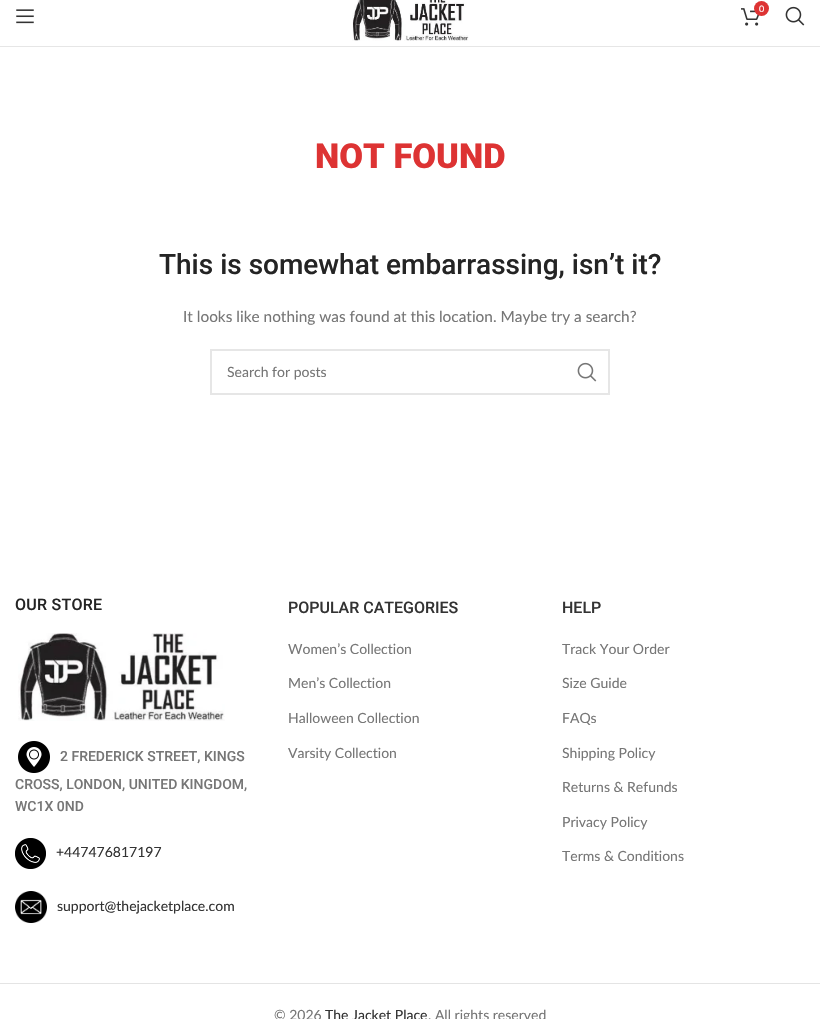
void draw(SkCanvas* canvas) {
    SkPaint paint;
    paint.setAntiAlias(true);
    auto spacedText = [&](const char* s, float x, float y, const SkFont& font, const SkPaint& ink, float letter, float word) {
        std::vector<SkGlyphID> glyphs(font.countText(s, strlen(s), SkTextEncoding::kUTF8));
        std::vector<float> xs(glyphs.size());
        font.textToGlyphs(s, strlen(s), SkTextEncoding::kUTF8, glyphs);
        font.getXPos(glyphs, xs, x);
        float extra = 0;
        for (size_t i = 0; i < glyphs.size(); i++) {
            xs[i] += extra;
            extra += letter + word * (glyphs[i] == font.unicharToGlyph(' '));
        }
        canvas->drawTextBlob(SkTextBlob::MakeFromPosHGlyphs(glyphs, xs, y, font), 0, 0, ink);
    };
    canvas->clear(0xFFFFFFFF);
    paint.setColor(0xFFE6E6E6);
    canvas->drawRect(SkRect::MakeXYWH(0, 46, 820, 1), paint);
    canvas->drawImageRect(SkImages::DeferredFromEncodedData(SkData::MakeFromFileName("img1.png")), SkRect::MakeXYWH(16, 9, 18, 15), SkSamplingOptions());
    canvas->drawImageRect(SkImages::DeferredFromEncodedData(SkData::MakeFromFileName("img2.png")), SkRect::MakeXYWH(352, 0, 117, 41), SkSamplingOptions());
    canvas->drawImageRect(SkImages::DeferredFromEncodedData(SkData::MakeFromFileName("img3.png")), SkRect::MakeXYWH(741, 8, 19, 18), SkSamplingOptions());
    paint.setColor(0xFFDD3333);
    canvas->drawCircle(761.5f, 8.5f, 7.5f, paint);
    SkFont font1(fontMgr->matchFamilyStyle("Lato", SkFontStyle::Normal()), 9);
    font1.setSubpixel(true);
    paint.setColor(0xFFFFFFFF);
    canvas->drawString("0", 759, 12, font1, paint);
    canvas->drawImageRect(SkImages::DeferredFromEncodedData(SkData::MakeFromFileName("img4.png")), SkRect::MakeXYWH(785, 6, 20, 20), SkSamplingOptions());
    SkFont font2(fontMgr->matchFamilyStyle("Roboto", SkFontStyle(900, SkFontStyle::kNormal_Width, SkFontStyle::kUpright_Slant)), 34.5f);
    font2.setSubpixel(true);
    paint.setColor(0xFFDD3333);
    canvas->drawString("NOT FOUND", 315, 168, font2, paint);
    SkFont font3(fontMgr->matchFamilyStyle("Roboto", SkFontStyle(500, SkFontStyle::kNormal_Width, SkFontStyle::kUpright_Slant)), 28);
    font3.setSubpixel(true);
    paint.setColor(0xFF242424);
    canvas->drawString("This is somewhat embarrassing, isn’t it?", 159, 274, font3, paint);
    SkFont font4(fontMgr->matchFamilyStyle("Lato", SkFontStyle::Normal()), 15.4f);
    font4.setSubpixel(true);
    paint.setColor(0xFF767676);
    canvas->drawString("It looks like nothing was found at this location. Maybe try a search?", 183, 322, font4, paint);
    paint.setStyle(SkPaint::kStroke_Style);
    paint.setStrokeWidth(2);
    paint.setColor(0xFFE6E6E6);
    canvas->drawRect(SkRect::MakeXYWH(211, 350, 398, 44), paint);
    SkFont font5(fontMgr->matchFamilyStyle("Lato", SkFontStyle::Normal()), 14);
    font5.setSubpixel(true);
    paint.setStyle(SkPaint::kFill_Style);
    paint.setColor(0xFF767676);
    canvas->drawString("Search for posts", 227, 377, font5, paint);
    canvas->drawImageRect(SkImages::DeferredFromEncodedData(SkData::MakeFromFileName("img5.png")), SkRect::MakeXYWH(577, 362, 20, 20), SkSamplingOptions());
    SkFont font6(fontMgr->matchFamilyStyle("Roboto", SkFontStyle(500, SkFontStyle::kNormal_Width, SkFontStyle::kUpright_Slant)), 16);
    font6.setSubpixel(true);
    paint.setColor(0xFF242424);
    spacedText("OUR STORE", 15, 610, font6, paint, 0.25f, 0);
    canvas->drawImageRect(SkImages::DeferredFromEncodedData(SkData::MakeFromFileName("img6.png")), SkRect::MakeXYWH(18, 633, 207, 88), SkSamplingOptions());
    canvas->drawImageRect(SkImages::DeferredFromEncodedData(SkData::MakeFromFileName("img7.png")), SkRect::MakeXYWH(18, 741, 32, 32), SkSamplingOptions());
    SkFont font7(fontMgr->matchFamilyStyle("Roboto", SkFontStyle(500, SkFontStyle::kNormal_Width, SkFontStyle::kUpright_Slant)), 14);
    font7.setSubpixel(true);
    paint.setColor(0xFF767676);
    canvas->drawString("2 FREDERICK STREET, KINGS", 60, 761, font7, paint);
    canvas->drawString("CROSS, LONDON, UNITED KINGDOM,", 15, 789, font7, paint);
    canvas->drawString("WC1X 0ND", 15, 811, font7, paint);
    canvas->drawImageRect(SkImages::DeferredFromEncodedData(SkData::MakeFromFileName("img8.png")), SkRect::MakeXYWH(15, 838, 31, 31), SkSamplingOptions());
    paint.setColor(0xFF333333);
    canvas->drawString("+447476817197", 56, 857, font5, paint);
    canvas->drawImageRect(SkImages::DeferredFromEncodedData(SkData::MakeFromFileName("img9.png")), SkRect::MakeXYWH(15, 891, 32, 32), SkSamplingOptions());
    canvas->drawString("support@thejacketplace.com", 57, 911, font5, paint);
    canvas->drawString("POPULAR CATEGORIES", 288, 613, font6, paint);
    paint.setColor(0xFF767676);
    canvas->drawString("Women’s Collection", 288, 654, font5, paint);
    canvas->drawString("Men’s Collection", 288, 688, font5, paint);
    canvas->drawString("Halloween Collection", 288, 723, font5, paint);
    canvas->drawString("Varsity Collection", 288, 758, font5, paint);
    paint.setColor(0xFF333333);
    canvas->drawString("HELP", 562, 613, font6, paint);
    paint.setColor(0xFF767676);
    canvas->drawString("Track Your Order", 562, 654, font5, paint);
    canvas->drawString("Size Guide", 562, 688, font5, paint);
    canvas->drawString("FAQs", 562, 723, font5, paint);
    canvas->drawString("Shipping Policy", 562, 758, font5, paint);
    canvas->drawString("Returns & Refunds", 562, 792, font5, paint);
    canvas->drawString("Privacy Policy", 562, 827, font5, paint);
    canvas->drawString("Terms & Conditions", 562, 861, font5, paint);
    paint.setColor(0xFFE4E4E4);
    canvas->drawRect(SkRect::MakeXYWH(0, 983, 820, 1), paint);
    paint.setColor(0xFF767676);
    canvas->drawString("© 2026", 274, 1020, font5, paint);
    paint.setColor(0xFF333333);
    canvas->drawString("The Jacket Place", 325, 1020, font5, paint);
    paint.setColor(0xFF767676);
    canvas->drawString(". All rights reserved", 428, 1020, font5, paint);
}
